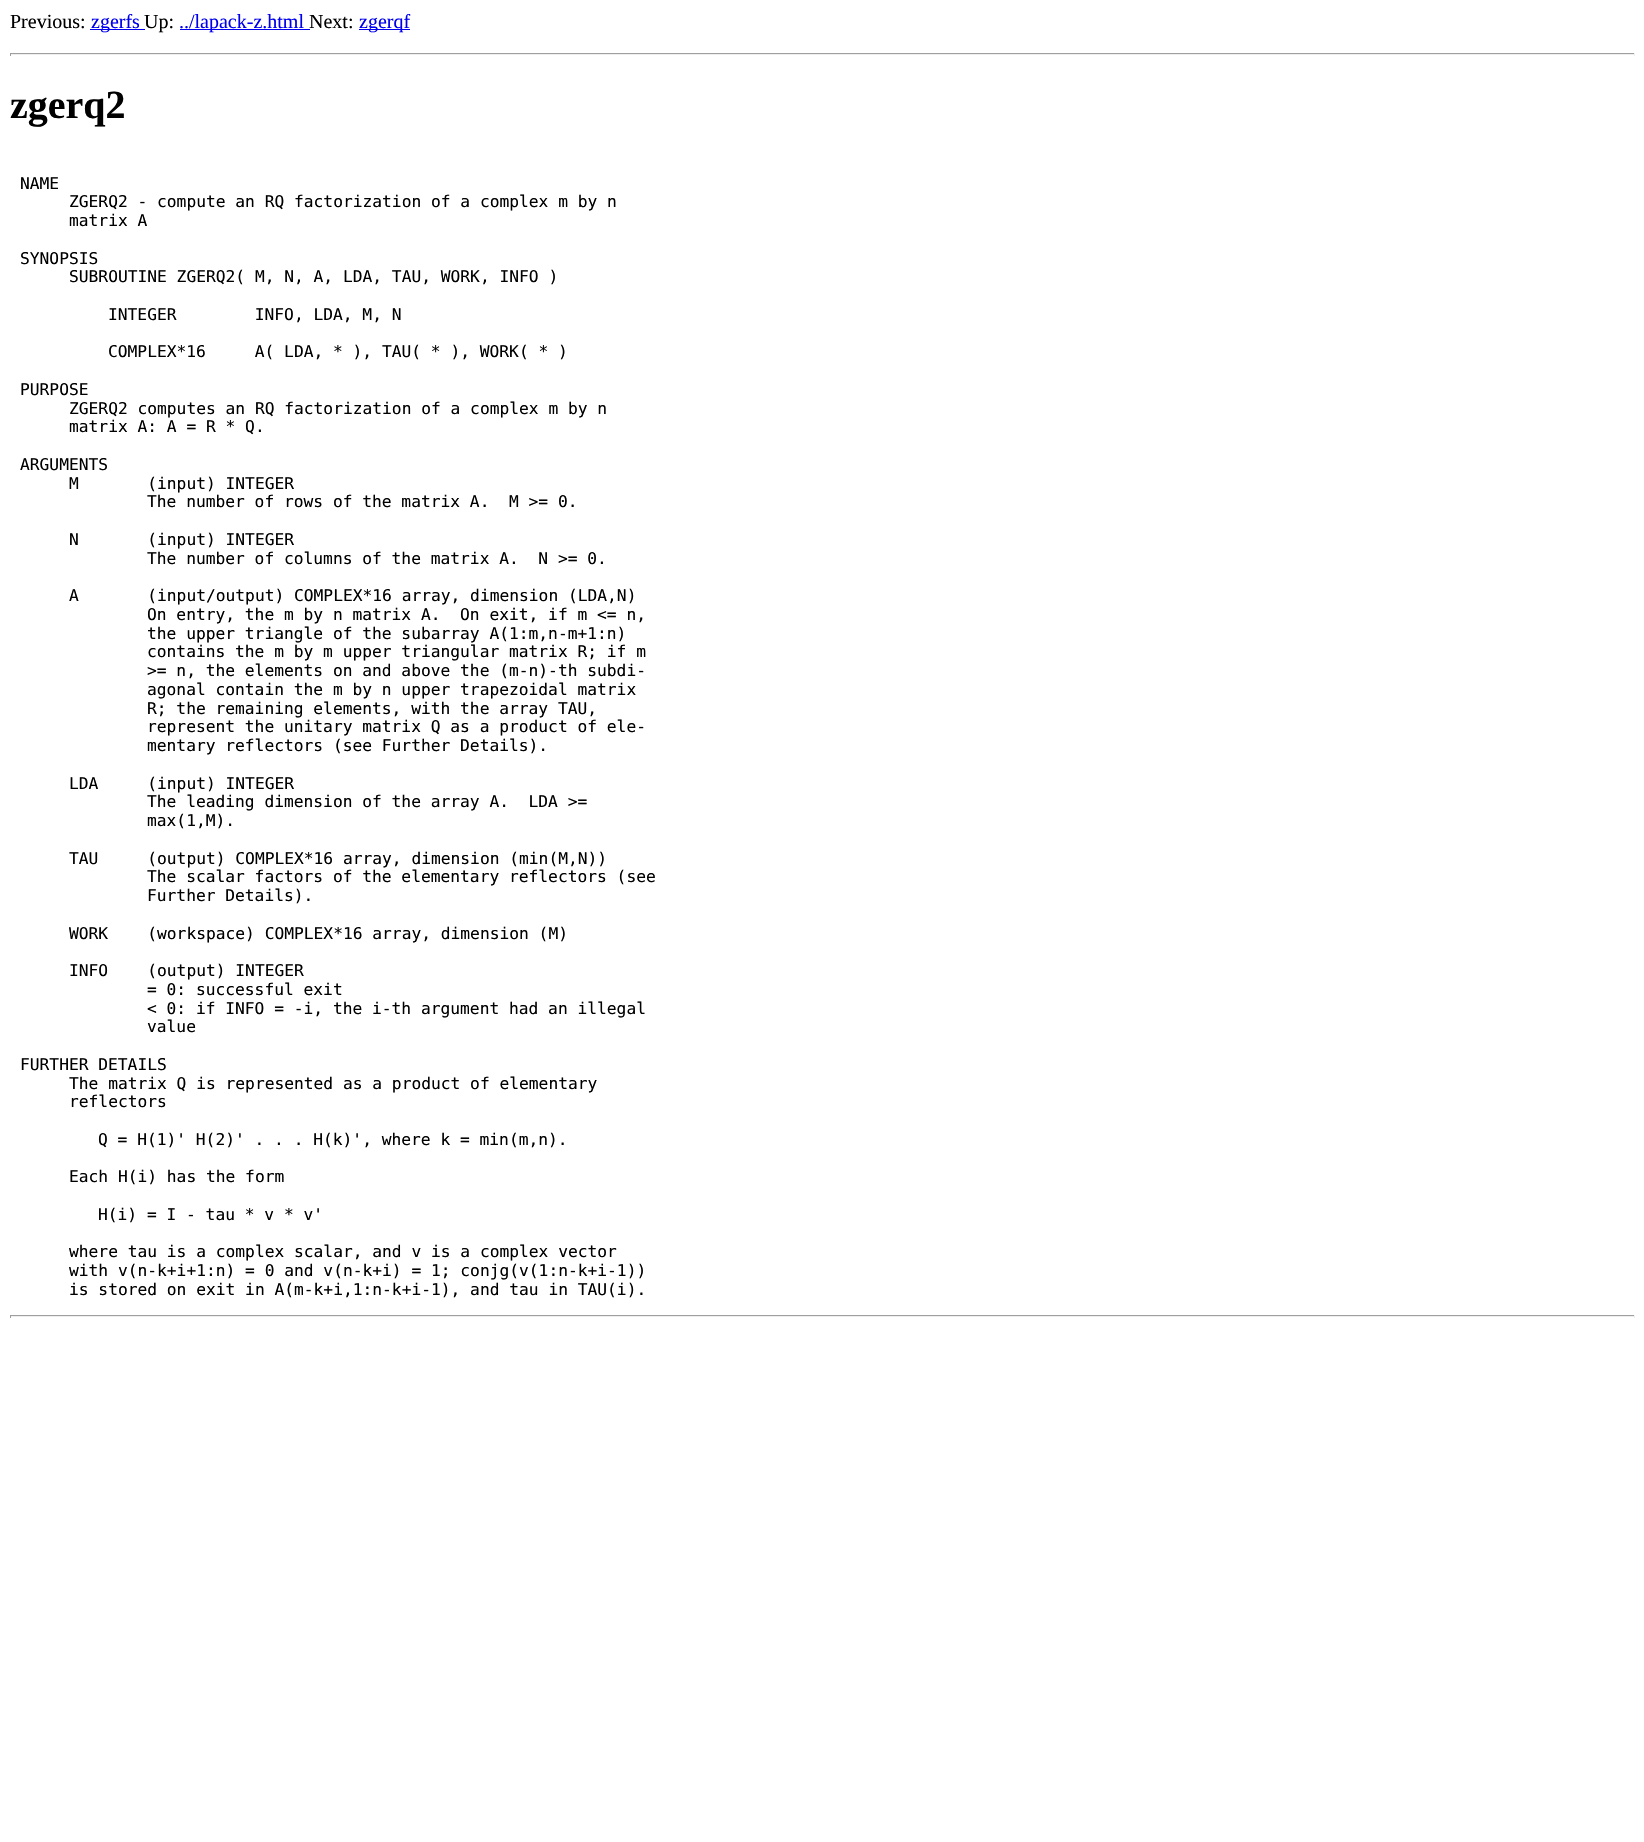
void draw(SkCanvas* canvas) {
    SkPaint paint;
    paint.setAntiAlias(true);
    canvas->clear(0xFFFFFFFF);
    SkFont font1(fontMgr->matchFamilyStyle("Liberation Serif", SkFontStyle::Normal()), 20);
    font1.setSubpixel(true);
    paint.setColor(0xFF000000);
    canvas->drawString("Previous:", 10, 28, font1, paint);
    paint.setColor(0xFF0000EE);
    canvas->drawRect(SkRect::MakeXYWH(90, 29, 55, 1), paint);
    canvas->drawString("zgerfs", 91, 28, font1, paint);
    paint.setColor(0xFF000000);
    canvas->drawString("Up:", 144, 28, font1, paint);
    paint.setColor(0xFF0000EE);
    canvas->drawRect(SkRect::MakeXYWH(180, 29, 130, 1), paint);
    canvas->drawString("../lapack-z.html", 179, 28, font1, paint);
    paint.setColor(0xFF000000);
    canvas->drawString("Next:", 309, 28, font1, paint);
    paint.setColor(0xFF0000EE);
    canvas->drawRect(SkRect::MakeXYWH(359, 29, 51, 1), paint);
    canvas->drawString("zgerqf", 359, 28, font1, paint);
    paint.setColor(0xFF9F9F9F);
    canvas->drawRect(SkRect::MakeXYWH(10, 53, 1625, 1), paint);
    paint.setColor(0xFFEEEEEE);
    canvas->drawRect(SkRect::MakeXYWH(1634, 53, 1, 3), paint);
    canvas->drawRect(SkRect::MakeXYWH(10, 54, 1625, 1), paint);
    paint.setColor(0xFF9F9F9F);
    canvas->drawRect(SkRect::MakeXYWH(10, 53, 1, 3), paint);
    SkFont font2(fontMgr->matchFamilyStyle("Liberation Serif", SkFontStyle::Bold()), 40);
    font2.setSubpixel(true);
    paint.setColor(0xFF000000);
    canvas->drawString("zgerq2", 10, 118, font2, paint);
    SkFont font3(fontMgr->matchFamilyStyle("DejaVu Sans Mono", SkFontStyle::Normal()), 16.25f);
    font3.setSubpixel(true);
    canvas->drawString("NAME", 20, 189, font3, paint);
    canvas->drawString("ZGERQ2 - compute an RQ factorization of a complex m by n", 69, 207, font3, paint);
    canvas->drawString("matrix A", 69, 226, font3, paint);
    canvas->drawString("SYNOPSIS", 20, 264, font3, paint);
    canvas->drawString("SUBROUTINE ZGERQ2( M, N, A, LDA, TAU, WORK, INFO )", 69, 282, font3, paint);
    canvas->drawString("INTEGER        INFO, LDA, M, N", 108, 320, font3, paint);
    canvas->drawString("COMPLEX*16     A( LDA, * ), TAU( * ), WORK( * )", 108, 357, font3, paint);
    canvas->drawString("PURPOSE", 20, 395, font3, paint);
    canvas->drawString("ZGERQ2 computes an RQ factorization of a complex m by n", 69, 414, font3, paint);
    canvas->drawString("matrix A: A = R * Q.", 69, 432, font3, paint);
    canvas->drawString("ARGUMENTS", 20, 470, font3, paint);
    canvas->drawString("M       (input) INTEGER", 69, 489, font3, paint);
    canvas->drawString("The number of rows of the matrix A.  M >= 0.", 147, 507, font3, paint);
    canvas->drawString("N       (input) INTEGER", 69, 545, font3, paint);
    canvas->drawString("The number of columns of the matrix A.  N >= 0.", 147, 564, font3, paint);
    canvas->drawString("A       (input/output) COMPLEX*16 array, dimension (LDA,N)", 69, 601, font3, paint);
    canvas->drawString("On entry, the m by n matrix A.  On exit, if m <= n,", 147, 620, font3, paint);
    canvas->drawString("the upper triangle of the subarray A(1:m,n-m+1:n)", 147, 639, font3, paint);
    canvas->drawString("contains the m by m upper triangular matrix R; if m", 147, 657, font3, paint);
    canvas->drawString(">= n, the elements on and above the (m-n)-th subdi-", 147, 676, font3, paint);
    canvas->drawString("agonal contain the m by n upper trapezoidal matrix", 147, 695, font3, paint);
    canvas->drawString("R; the remaining elements, with the array TAU,", 147, 714, font3, paint);
    canvas->drawString("represent the unitary matrix Q as a product of ele-", 147, 732, font3, paint);
    canvas->drawString("mentary reflectors (see Further Details).", 147, 751, font3, paint);
    canvas->drawString("LDA     (input) INTEGER", 69, 789, font3, paint);
    canvas->drawString("The leading dimension of the array A.  LDA >=", 147, 807, font3, paint);
    canvas->drawString("max(1,M).", 147, 826, font3, paint);
    canvas->drawString("TAU     (output) COMPLEX*16 array, dimension (min(M,N))", 69, 864, font3, paint);
    canvas->drawString("The scalar factors of the elementary reflectors (see", 147, 882, font3, paint);
    canvas->drawString("Further Details).", 147, 901, font3, paint);
    canvas->drawString("WORK    (workspace) COMPLEX*16 array, dimension (M)", 69, 939, font3, paint);
    canvas->drawString("INFO    (output) INTEGER", 69, 976, font3, paint);
    canvas->drawString("= 0: successful exit", 147, 995, font3, paint);
    canvas->drawString("< 0: if INFO = -i, the i-th argument had an illegal", 147, 1014, font3, paint);
    canvas->drawString("value", 147, 1032, font3, paint);
    canvas->drawString("FURTHER DETAILS", 20, 1070, font3, paint);
    canvas->drawString("The matrix Q is represented as a product of elementary", 69, 1089, font3, paint);
    canvas->drawString("reflectors", 69, 1107, font3, paint);
    canvas->drawString("Q = H(1)' H(2)' . . . H(k)', where k = min(m,n).", 98, 1145, font3, paint);
    canvas->drawString("Each H(i) has the form", 69, 1182, font3, paint);
    canvas->drawString("H(i) = I - tau * v * v'", 98, 1220, font3, paint);
    canvas->drawString("where tau is a complex scalar, and v is a complex vector", 69, 1257, font3, paint);
    canvas->drawString("with v(n-k+i+1:n) = 0 and v(n-k+i) = 1; conjg(v(1:n-k+i-1))", 69, 1276, font3, paint);
    canvas->drawString("is stored on exit in A(m-k+i,1:n-k+i-1), and tau in TAU(i).", 69, 1295, font3, paint);
    paint.setColor(0xFF9F9F9F);
    canvas->drawRect(SkRect::MakeXYWH(10, 1315, 1625, 1), paint);
    paint.setColor(0xFFEEEEEE);
    canvas->drawRect(SkRect::MakeXYWH(1634, 1315, 1, 3), paint);
    canvas->drawRect(SkRect::MakeXYWH(10, 1316, 1625, 1), paint);
    paint.setColor(0xFF9F9F9F);
    canvas->drawRect(SkRect::MakeXYWH(10, 1315, 1, 3), paint);
}
